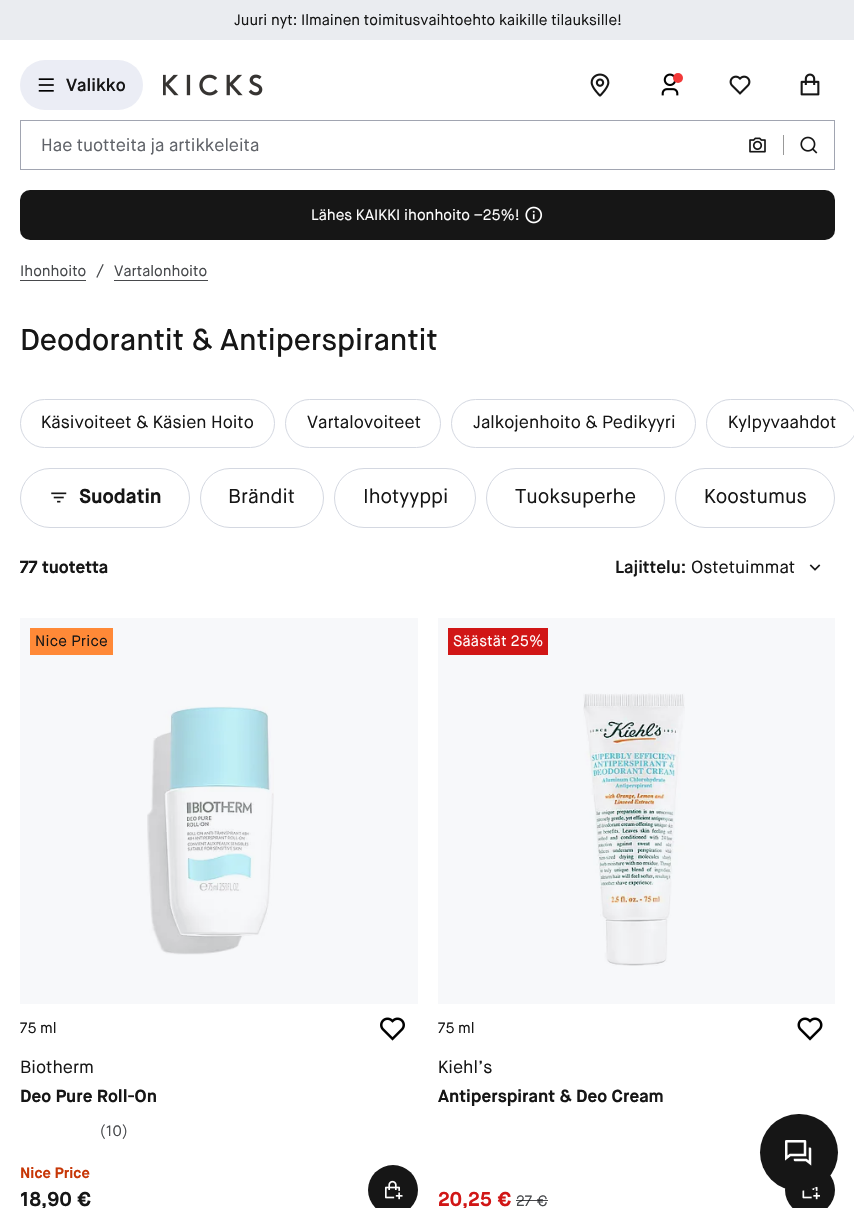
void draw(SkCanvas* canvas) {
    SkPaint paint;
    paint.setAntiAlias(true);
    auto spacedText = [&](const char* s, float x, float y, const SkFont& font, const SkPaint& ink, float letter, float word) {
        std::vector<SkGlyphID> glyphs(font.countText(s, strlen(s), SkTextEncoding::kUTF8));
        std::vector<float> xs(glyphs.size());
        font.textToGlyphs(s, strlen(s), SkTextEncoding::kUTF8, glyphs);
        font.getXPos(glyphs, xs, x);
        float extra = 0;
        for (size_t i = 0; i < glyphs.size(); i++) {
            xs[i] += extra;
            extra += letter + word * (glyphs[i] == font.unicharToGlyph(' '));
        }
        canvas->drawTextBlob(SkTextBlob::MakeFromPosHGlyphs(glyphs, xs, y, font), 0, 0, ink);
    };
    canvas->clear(0xFFFFFFFF);
    paint.setColor(0xFFF7F8FA);
    canvas->drawRect(SkRect::MakeXYWH(438, 618, 397, 386), paint);
    canvas->drawRect(SkRect::MakeXYWH(20, 618, 398, 386), paint);
    paint.setColor(0xFFEAECF0);
    canvas->drawRect(SkRect::MakeXYWH(0, 0, 854, 40), paint);
    SkFont font1(fontMgr->matchFamilyStyle("Maison Neue", SkFontStyle::Normal()), 15);
    font1.setSubpixel(true);
    paint.setColor(0xFF161616);
    canvas->drawString("Juuri nyt: Ilmainen toimitusvaihtoehto kaikille tilauksille!", 234, 25, font1, paint);
    paint.setColor(0xFFEBEDF5);
    canvas->drawRoundRect(SkRect::MakeXYWH(20, 60, 123, 50), 25, 25, paint);
    canvas->drawImageRect(SkImages::DeferredFromEncodedData(SkData::MakeFromFileName("img1.png")), SkRect::MakeXYWH(38, 78, 16, 14), SkSamplingOptions());
    SkFont font2(fontMgr->matchFamilyStyle("Maison Neue", SkFontStyle(600, SkFontStyle::kNormal_Width, SkFontStyle::kUpright_Slant)), 17.5f);
    font2.setSubpixel(true);
    paint.setColor(0xFF161616);
    canvas->drawString("Valikko", 66, 91, font2, paint);
    canvas->drawImageRect(SkImages::DeferredFromEncodedData(SkData::MakeFromFileName("img2.png")), SkRect::MakeXYWH(163, 74, 100, 22), SkSamplingOptions());
    canvas->drawImageRect(SkImages::DeferredFromEncodedData(SkData::MakeFromFileName("img3.png")), SkRect::MakeXYWH(590, 73, 20, 24), SkSamplingOptions());
    canvas->drawImageRect(SkImages::DeferredFromEncodedData(SkData::MakeFromFileName("img4.png")), SkRect::MakeXYWH(661, 73, 18, 23), SkSamplingOptions());
    paint.setColor(0xFFF23939);
    canvas->drawCircle(678, 78, 5, paint);
    canvas->drawImageRect(SkImages::DeferredFromEncodedData(SkData::MakeFromFileName("img5.png")), SkRect::MakeXYWH(729, 75, 22, 20), SkSamplingOptions());
    canvas->drawImageRect(SkImages::DeferredFromEncodedData(SkData::MakeFromFileName("img6.png")), SkRect::MakeXYWH(800, 73, 20, 23), SkSamplingOptions());
    paint.setStyle(SkPaint::kStroke_Style);
    paint.setStrokeWidth(1);
    paint.setColor(0xFFA1A5B1);
    canvas->drawRect(SkRect::MakeXYWH(20.5f, 120.5f, 814, 49), paint);
    SkFont font3(fontMgr->matchFamilyStyle("Maison Neue", SkFontStyle::Normal()), 17.5f);
    font3.setSubpixel(true);
    paint.setStyle(SkPaint::kFill_Style);
    paint.setColor(0xFF606369);
    canvas->drawString("Hae tuotteita ja artikkeleita", 41, 151, font3, paint);
    canvas->drawImageRect(SkImages::DeferredFromEncodedData(SkData::MakeFromFileName("img7.png")), SkRect::MakeXYWH(749, 137, 17, 16), SkSamplingOptions());
    paint.setColor(0xFF999999);
    canvas->drawRect(SkRect::MakeXYWH(783, 135, 1, 20), paint);
    canvas->drawImageRect(SkImages::DeferredFromEncodedData(SkData::MakeFromFileName("img8.png")), SkRect::MakeXYWH(800, 136, 18, 18), SkSamplingOptions());
    paint.setColor(0xFF161616);
    canvas->drawRoundRect(SkRect::MakeXYWH(20, 190, 815, 50), 10, 10, paint);
    paint.setColor(0xFFFFFFFF);
    canvas->drawString("Lähes KAIKKI ihonhoito –25%!", 311, 220, font1, paint);
    canvas->drawImageRect(SkImages::DeferredFromEncodedData(SkData::MakeFromFileName("img9.png")), SkRect::MakeXYWH(525, 206, 18, 18), SkSamplingOptions());
    paint.setColor(0xFF47494C);
    canvas->drawString("Ihonhoito", 20, 276, font1, paint);
    canvas->drawRect(SkRect::MakeXYWH(20, 280, 66, 1), paint);
    canvas->drawString("/", 96, 277, font3, paint);
    canvas->drawString("Vartalonhoito", 114, 276, font1, paint);
    canvas->drawRect(SkRect::MakeXYWH(114, 280, 94, 1), paint);
    SkFont font4(fontMgr->matchFamilyStyle("Maison Neue", SkFontStyle(500, SkFontStyle::kNormal_Width, SkFontStyle::kUpright_Slant)), 30);
    font4.setSubpixel(true);
    paint.setColor(0xFF161616);
    canvas->drawString("Deodorantit & Antiperspirantit", 20, 350, font4, paint);
    paint.setStyle(SkPaint::kStroke_Style);
    paint.setColor(0xFFD4D8E1);
    canvas->drawRoundRect(SkRect::MakeXYWH(20.5f, 399.5f, 254, 48), 24, 24, paint);
    paint.setStyle(SkPaint::kFill_Style);
    paint.setColor(0xFF161616);
    canvas->drawString("Käsivoiteet & Käsien Hoito", 41, 428, font3, paint);
    paint.setStyle(SkPaint::kStroke_Style);
    paint.setColor(0xFFD4D8E1);
    canvas->drawRoundRect(SkRect::MakeXYWH(285.5f, 399.5f, 155, 48), 24, 24, paint);
    paint.setStyle(SkPaint::kFill_Style);
    paint.setColor(0xFF161616);
    canvas->drawString("Vartalovoiteet", 307, 428, font3, paint);
    paint.setStyle(SkPaint::kStroke_Style);
    paint.setColor(0xFFD4D8E1);
    canvas->drawRoundRect(SkRect::MakeXYWH(451.5f, 399.5f, 244, 48), 24, 24, paint);
    paint.setStyle(SkPaint::kFill_Style);
    paint.setColor(0xFF161616);
    canvas->drawString("Jalkojenhoito & Pedikyyri", 473, 428, font3, paint);
    paint.setStyle(SkPaint::kStroke_Style);
    paint.setColor(0xFFD4D8E1);
    canvas->drawRoundRect(SkRect::MakeXYWH(706.5f, 399.5f, 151, 48), 24, 24, paint);
    paint.setStyle(SkPaint::kFill_Style);
    paint.setColor(0xFF161616);
    canvas->drawString("Kylpyvaahdot", 728, 428, font3, paint);
    paint.setStyle(SkPaint::kStroke_Style);
    paint.setColor(0xFFD4D8E1);
    canvas->drawRoundRect(SkRect::MakeXYWH(20.5f, 468.5f, 169, 59), 29.5f, 29.5f, paint);
    canvas->drawImageRect(SkImages::DeferredFromEncodedData(SkData::MakeFromFileName("img10.png")), SkRect::MakeXYWH(51, 492, 16, 11), SkSamplingOptions());
    SkFont font5(fontMgr->matchFamilyStyle("Maison Neue", SkFontStyle::Bold()), 20);
    font5.setSubpixel(true);
    paint.setStyle(SkPaint::kFill_Style);
    paint.setColor(0xFF161616);
    canvas->drawString("Suodatin", 79, 503, font5, paint);
    paint.setStyle(SkPaint::kStroke_Style);
    paint.setColor(0xFFD4D8E1);
    canvas->drawRoundRect(SkRect::MakeXYWH(200.5f, 468.5f, 123, 59), 29.5f, 29.5f, paint);
    SkFont font6(fontMgr->matchFamilyStyle("Maison Neue", SkFontStyle::Normal()), 20);
    font6.setSubpixel(true);
    paint.setStyle(SkPaint::kFill_Style);
    paint.setColor(0xFF161616);
    canvas->drawString("Brändit", 228, 503, font6, paint);
    paint.setStyle(SkPaint::kStroke_Style);
    paint.setColor(0xFFD4D8E1);
    canvas->drawRoundRect(SkRect::MakeXYWH(334.5f, 468.5f, 141, 59), 29.5f, 29.5f, paint);
    paint.setStyle(SkPaint::kFill_Style);
    paint.setColor(0xFF161616);
    canvas->drawString("Ihotyyppi", 363, 503, font6, paint);
    paint.setStyle(SkPaint::kStroke_Style);
    paint.setColor(0xFFD4D8E1);
    canvas->drawRoundRect(SkRect::MakeXYWH(486.5f, 468.5f, 178, 59), 29.5f, 29.5f, paint);
    paint.setStyle(SkPaint::kFill_Style);
    paint.setColor(0xFF161616);
    canvas->drawString("Tuoksuperhe", 515, 503, font6, paint);
    paint.setStyle(SkPaint::kStroke_Style);
    paint.setColor(0xFFD4D8E1);
    canvas->drawRoundRect(SkRect::MakeXYWH(675.5f, 468.5f, 159, 59), 29.5f, 29.5f, paint);
    paint.setStyle(SkPaint::kFill_Style);
    paint.setColor(0xFF161616);
    canvas->drawString("Koostumus", 704, 503, font6, paint);
    SkFont font7(fontMgr->matchFamilyStyle("Maison Neue", SkFontStyle::Bold()), 17.5f);
    font7.setSubpixel(true);
    canvas->drawString("77 tuotetta", 20, 573, font7, paint);
    canvas->drawString("Lajittelu:", 615, 573, font2, paint);
    canvas->drawString("Ostetuimmat", 691, 573, font3, paint);
    canvas->drawImageRect(SkImages::DeferredFromEncodedData(SkData::MakeFromFileName("img11.png")), SkRect::MakeXYWH(809, 564, 12, 7), SkSamplingOptions());
    paint.setColor(0xFFFF8937);
    canvas->drawRect(SkRect::MakeXYWH(30, 628, 83, 27), paint);
    paint.setColor(0xFF161616);
    spacedText("Nice Price", 35, 646, font1, paint, 0.25f, 0);
    canvas->drawImageRect(SkImages::DeferredFromEncodedData(SkData::MakeFromFileName("img12.png")), SkRect::MakeXYWH(147, 706, 127, 249), SkSamplingOptions());
    canvas->drawString("75 ml", 20, 1033, font1, paint);
    canvas->drawImageRect(SkImages::DeferredFromEncodedData(SkData::MakeFromFileName("img13.png")), SkRect::MakeXYWH(380, 1017, 25, 24), SkSamplingOptions());
    canvas->drawString("Biotherm", 20, 1073, font3, paint);
    canvas->drawString("Deo Pure Roll-On", 20, 1102, font7, paint);
    paint.setColor(0xFF47494C);
    canvas->drawString("(10)", 100, 1136, font1, paint);
    SkFont font8(fontMgr->matchFamilyStyle("Maison Neue", SkFontStyle::Bold()), 15);
    font8.setSubpixel(true);
    paint.setColor(0xFFC73707);
    canvas->drawString("Nice Price", 20, 1178, font8, paint);
    paint.setColor(0xFF161616);
    canvas->drawString("18,90 €", 20, 1206, font5, paint);
    canvas->drawCircle(393, 1190, 25, paint);
    canvas->drawImageRect(SkImages::DeferredFromEncodedData(SkData::MakeFromFileName("img14.png")), SkRect::MakeXYWH(385, 1180, 18, 20), SkSamplingOptions());
    paint.setColor(0xFFD11616);
    canvas->drawRect(SkRect::MakeXYWH(448, 628, 100, 27), paint);
    paint.setColor(0xFFFFFFFF);
    spacedText("Säästät 25%", 453, 646, font1, paint, 0.25f, 0);
    canvas->drawImageRect(SkImages::DeferredFromEncodedData(SkData::MakeFromFileName("img15.png")), SkRect::MakeXYWH(583, 693, 102, 273), SkSamplingOptions());
    paint.setColor(0xFF161616);
    canvas->drawString("75 ml", 438, 1033, font1, paint);
    canvas->drawImageRect(SkImages::DeferredFromEncodedData(SkData::MakeFromFileName("img16.png")), SkRect::MakeXYWH(797, 1017, 26, 24), SkSamplingOptions());
    canvas->drawString("Kiehl’s", 438, 1073, font3, paint);
    canvas->drawString("Antiperspirant & Deo Cream", 438, 1102, font7, paint);
    paint.setColor(0xFFD11616);
    canvas->drawString("20,25 €", 438, 1206, font5, paint);
    paint.setColor(0xFF47494C);
    canvas->drawString("27 €", 516, 1206, font1, paint);
    paint.setColor(0xC20D0F13);
    canvas->drawRect(SkRect::MakeXYWH(516, 1200, 32, 1), paint);
    paint.setColor(0xFF161616);
    canvas->drawCircle(810, 1190, 25, paint);
    canvas->drawImageRect(SkImages::DeferredFromEncodedData(SkData::MakeFromFileName("img17.png")), SkRect::MakeXYWH(802, 1186, 18, 14), SkSamplingOptions());
    canvas->drawRoundRect(SkRect::MakeXYWH(760, 1114, 78, 77), 38.5f, 38.5f, paint);
    canvas->drawImageRect(SkImages::DeferredFromEncodedData(SkData::MakeFromFileName("img18.png")), SkRect::MakeXYWH(785, 1140, 27, 26), SkSamplingOptions());
}
